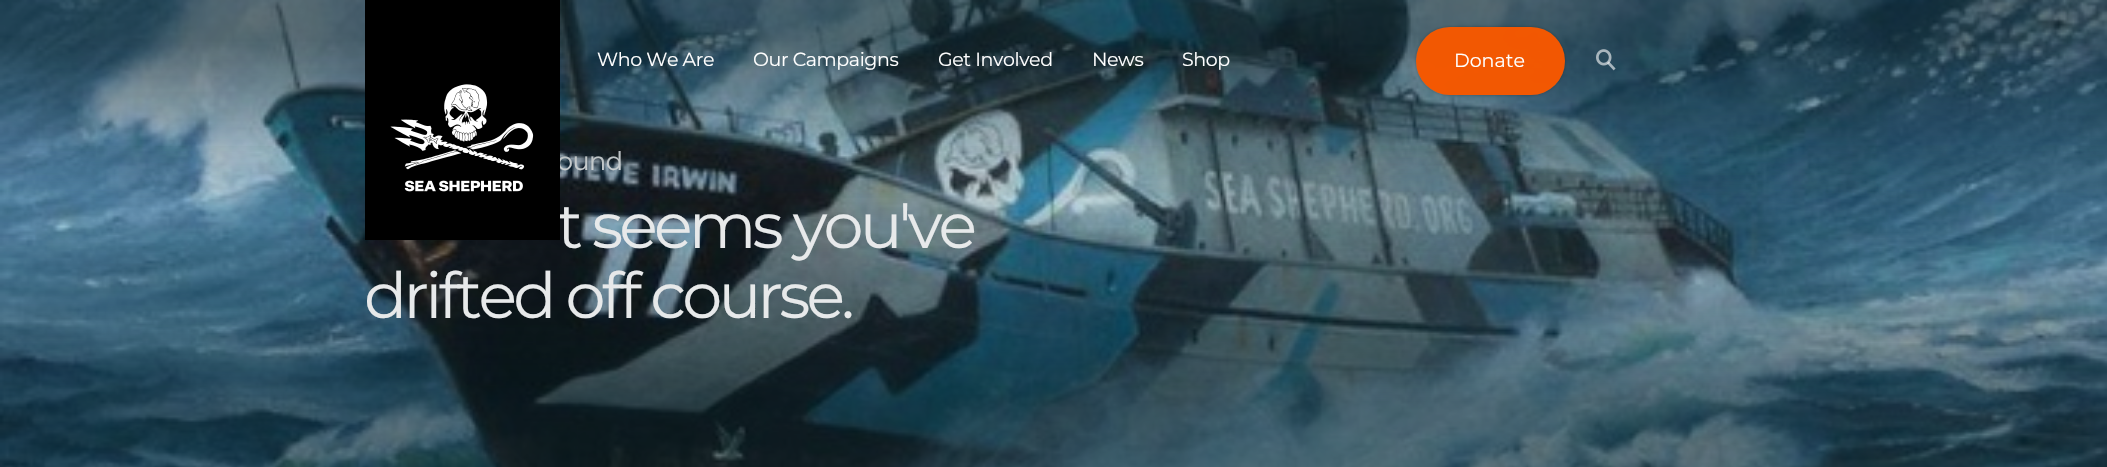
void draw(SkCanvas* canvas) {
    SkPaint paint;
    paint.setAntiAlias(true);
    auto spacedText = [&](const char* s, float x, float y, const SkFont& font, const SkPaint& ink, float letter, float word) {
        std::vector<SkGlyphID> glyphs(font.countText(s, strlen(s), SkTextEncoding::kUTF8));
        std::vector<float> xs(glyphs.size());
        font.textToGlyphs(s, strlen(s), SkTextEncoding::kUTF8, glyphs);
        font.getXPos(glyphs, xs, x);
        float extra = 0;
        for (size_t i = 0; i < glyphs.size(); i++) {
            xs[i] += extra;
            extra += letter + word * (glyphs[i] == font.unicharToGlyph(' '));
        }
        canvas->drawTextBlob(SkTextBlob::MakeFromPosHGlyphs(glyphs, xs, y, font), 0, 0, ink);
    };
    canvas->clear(0xFFFFFFFF);
    canvas->drawImageRect(SkImages::DeferredFromEncodedData(SkData::MakeFromFileName("img3.png")), SkRect::MakeXYWH(0, 0, 2107, 467), SkSamplingOptions());
    {
        const SkColor colors[] = {0x0002171E, 0x9402171E};
        const float stops[] = {0, 0.8f};
        const SkPoint ends[] = {{1054, 136}, {1054, 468}};
        paint.setShader(SkGradientShader::MakeLinear(ends, colors, stops, 2, SkTileMode::kClamp));
        paint.setAlpha(255);
    }
    canvas->drawRect(SkRect::MakeXYWH(0, 146, 2107, 321), paint);
    SkFont font1(fontMgr->matchFamilyStyle("Montserrat", SkFontStyle::Normal()), 25.5f);
    font1.setSubpixel(true);
    paint.setShader(nullptr);
    paint.setColor(0xFFE7E9EA);
    spacedText("ound", 557, 170, font1, paint, -0.5f, 0);
    {
        const SkColor colors[] = {0x9902171E, 0x0002171E};
        const float stops[] = {0.2f, 1};
        const SkPoint ends[] = {{1054, 0}, {1054, 204}};
        paint.setShader(SkGradientShader::MakeLinear(ends, colors, stops, 2, SkTileMode::kClamp));
        paint.setAlpha(255);
    }
    canvas->drawRect(SkRect::MakeXYWH(0, 0, 2107, 198), paint);
    SkFont font2(fontMgr->matchFamilyStyle("Montserrat", SkFontStyle::Normal()), 63.75f);
    font2.setSubpixel(true);
    paint.setShader(nullptr);
    paint.setColor(0xFFE7E9EA);
    spacedText("t seems you've", 557, 248, font2, paint, -3.8f, 0);
    paint.setColor(0xFF000000);
    canvas->drawRect(SkRect::MakeXYWH(365, 0, 195, 240), paint);
    canvas->drawImageRect(SkImages::DeferredFromEncodedData(SkData::MakeFromFileName("img1.png")), SkRect::MakeXYWH(390, 84, 144, 108), SkSamplingOptions());
    SkFont font3(fontMgr->matchFamilyStyle("Montserrat", SkFontStyle::Normal()), 19);
    font3.setSubpixel(true);
    paint.setColor(0xFFFFFFFF);
    spacedText("Who We Are", 597, 66, font3, paint, -0.4f, 0);
    spacedText("Our Campaigns", 753, 66, font3, paint, -0.4f, 0);
    spacedText("Get Involved", 938, 66, font3, paint, -0.4f, 0);
    spacedText("News", 1092, 66, font3, paint, -0.4f, 0);
    spacedText("Shop", 1182, 66, font3, paint, -0.4f, 0);
    canvas->save();
    canvas->clipPath(SkPathBuilder(SkPathFillType::kEvenOdd).moveTo(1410, 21).lineTo(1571, 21).lineTo(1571, 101).lineTo(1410, 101).close().moveTo(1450, 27).lineTo(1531, 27).cubicTo(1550, 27, 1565, 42, 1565, 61).cubicTo(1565, 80, 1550, 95, 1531, 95).lineTo(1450, 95).cubicTo(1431, 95, 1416, 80, 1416, 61).cubicTo(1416, 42, 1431, 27, 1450, 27).close().detach(), true);
    paint.setColor(0x47000000);
    paint.setMaskFilter(SkMaskFilter::MakeBlur(kNormal_SkBlurStyle, 1.5f));
    canvas->drawRoundRect(SkRect::MakeXYWH(1416, 27, 149, 68), 34, 34, paint);
    paint.setMaskFilter(nullptr);
    canvas->restore();
    paint.setColor(0xFCF45700);
    canvas->drawRoundRect(SkRect::MakeXYWH(1416, 27, 149, 68), 34, 34, paint);
    paint.setColor(0xFFFFFFFF);
    canvas->drawString("Donate", 1454, 67, font3, paint);
    canvas->drawImageRect(SkImages::DeferredFromEncodedData(SkData::MakeFromFileName("img2.png")), SkRect::MakeXYWH(1596, 49, 20, 22), SkSamplingOptions());
    paint.setColor(0xFFE7E9EA);
    spacedText("drifted off course.", 364, 318, font2, paint, -3.8f, 0);
}
